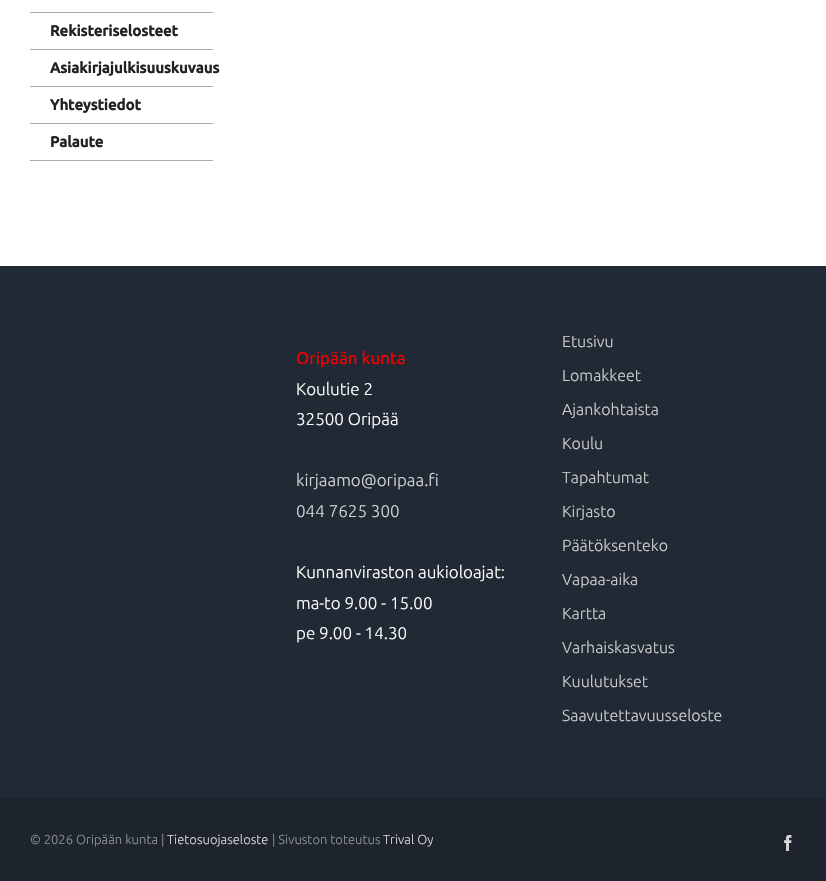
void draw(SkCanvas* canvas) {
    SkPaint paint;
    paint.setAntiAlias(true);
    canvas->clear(0xFFFFFFFF);
    paint.setColor(0xFFAAAAAA);
    canvas->drawRect(SkRect::MakeXYWH(30, 12, 183, 1), paint);
    canvas->drawRect(SkRect::MakeXYWH(30, 49, 183, 1), paint);
    SkFont font1(fontMgr->matchFamilyStyle("Ubuntu", SkFontStyle::Bold()), 15);
    font1.setSubpixel(true);
    paint.setColor(0xFF222222);
    canvas->drawString("Rekisteriselosteet", 50, 36, font1, paint);
    paint.setColor(0xFFAAAAAA);
    canvas->drawRect(SkRect::MakeXYWH(30, 86, 183, 1), paint);
    paint.setColor(0xFF222222);
    canvas->drawString("Asiakirjajulkisuuskuvaus", 50, 73, font1, paint);
    paint.setColor(0xFFAAAAAA);
    canvas->drawRect(SkRect::MakeXYWH(30, 123, 183, 1), paint);
    paint.setColor(0xFF222222);
    canvas->drawString("Yhteystiedot", 50, 110, font1, paint);
    paint.setColor(0xFFAAAAAA);
    canvas->drawRect(SkRect::MakeXYWH(30, 160, 183, 1), paint);
    paint.setColor(0xFF222222);
    canvas->drawString("Palaute", 50, 147, font1, paint);
    paint.setColor(0xFF212934);
    canvas->drawRect(SkRect::MakeXYWH(0, 266, 826, 532), paint);
    SkFont font2(fontMgr->matchFamilyStyle("Ubuntu", SkFontStyle::Normal()), 17);
    font2.setSubpixel(true);
    paint.setColor(0xFFF00001);
    canvas->drawString("Oripään kunta", 296, 364, font2, paint);
    SkFont font3(fontMgr->matchFamilyStyle("Ubuntu", SkFontStyle(300, SkFontStyle::kNormal_Width, SkFontStyle::kUpright_Slant)), 17);
    font3.setSubpixel(true);
    paint.setColor(0xFFFFFFFF);
    canvas->drawString("Koulutie 2", 296, 395, font3, paint);
    canvas->drawString("32500 Oripää", 296, 425, font3, paint);
    paint.setColor(0xFFD3D4D6);
    canvas->drawString("kirjaamo@oripaa.fi", 296, 486, font3, paint);
    canvas->drawString("044 7625 300", 296, 517, font3, paint);
    paint.setColor(0xFFFFFFFF);
    canvas->drawString("Kunnanviraston aukioloajat:", 296, 578, font3, paint);
    canvas->drawString("ma-to 9.00 - 15.00", 296, 609, font3, paint);
    canvas->drawString("pe 9.00 - 14.30", 296, 639, font3, paint);
    SkFont font4(fontMgr->matchFamilyStyle("Ubuntu", SkFontStyle(300, SkFontStyle::kNormal_Width, SkFontStyle::kUpright_Slant)), 16);
    font4.setSubpixel(true);
    paint.setColor(0xFFCCCCCC);
    canvas->drawString("Etusivu", 562, 347, font4, paint);
    canvas->drawString("Lomakkeet", 562, 381, font4, paint);
    canvas->drawString("Ajankohtaista", 562, 415, font4, paint);
    canvas->drawString("Koulu", 562, 449, font4, paint);
    canvas->drawString("Tapahtumat", 562, 483, font4, paint);
    canvas->drawString("Kirjasto", 562, 517, font4, paint);
    canvas->drawString("Päätöksenteko", 562, 551, font4, paint);
    canvas->drawString("Vapaa-aika", 562, 585, font4, paint);
    canvas->drawString("Kartta", 562, 619, font4, paint);
    canvas->drawString("Varhaiskasvatus", 562, 653, font4, paint);
    canvas->drawString("Kuulutukset", 562, 687, font4, paint);
    canvas->drawString("Saavutettavuusseloste", 562, 721, font4, paint);
    paint.setColor(0xFF1D242D);
    canvas->drawRect(SkRect::MakeXYWH(0, 798, 826, 83), paint);
    SkFont font5(fontMgr->matchFamilyStyle("Ubuntu", SkFontStyle(300, SkFontStyle::kNormal_Width, SkFontStyle::kUpright_Slant)), 13);
    font5.setSubpixel(true);
    paint.setColor(0xFF8E9296);
    canvas->drawString("© 2026 Oripään kunta |", 30, 844, font5, paint);
    paint.setColor(0xFFD3D4D6);
    canvas->drawString("Tietosuojaseloste", 167, 844, font5, paint);
    paint.setColor(0xFF8E9296);
    canvas->drawString("| Sivuston toteutus", 272, 844, font5, paint);
    paint.setColor(0xFFD3D4D6);
    canvas->drawString("Trival Oy", 383, 844, font5, paint);
    canvas->drawImageRect(SkImages::DeferredFromEncodedData(SkData::MakeFromFileName("img1.png")), SkRect::MakeXYWH(784, 835, 8, 16), SkSamplingOptions());
}
